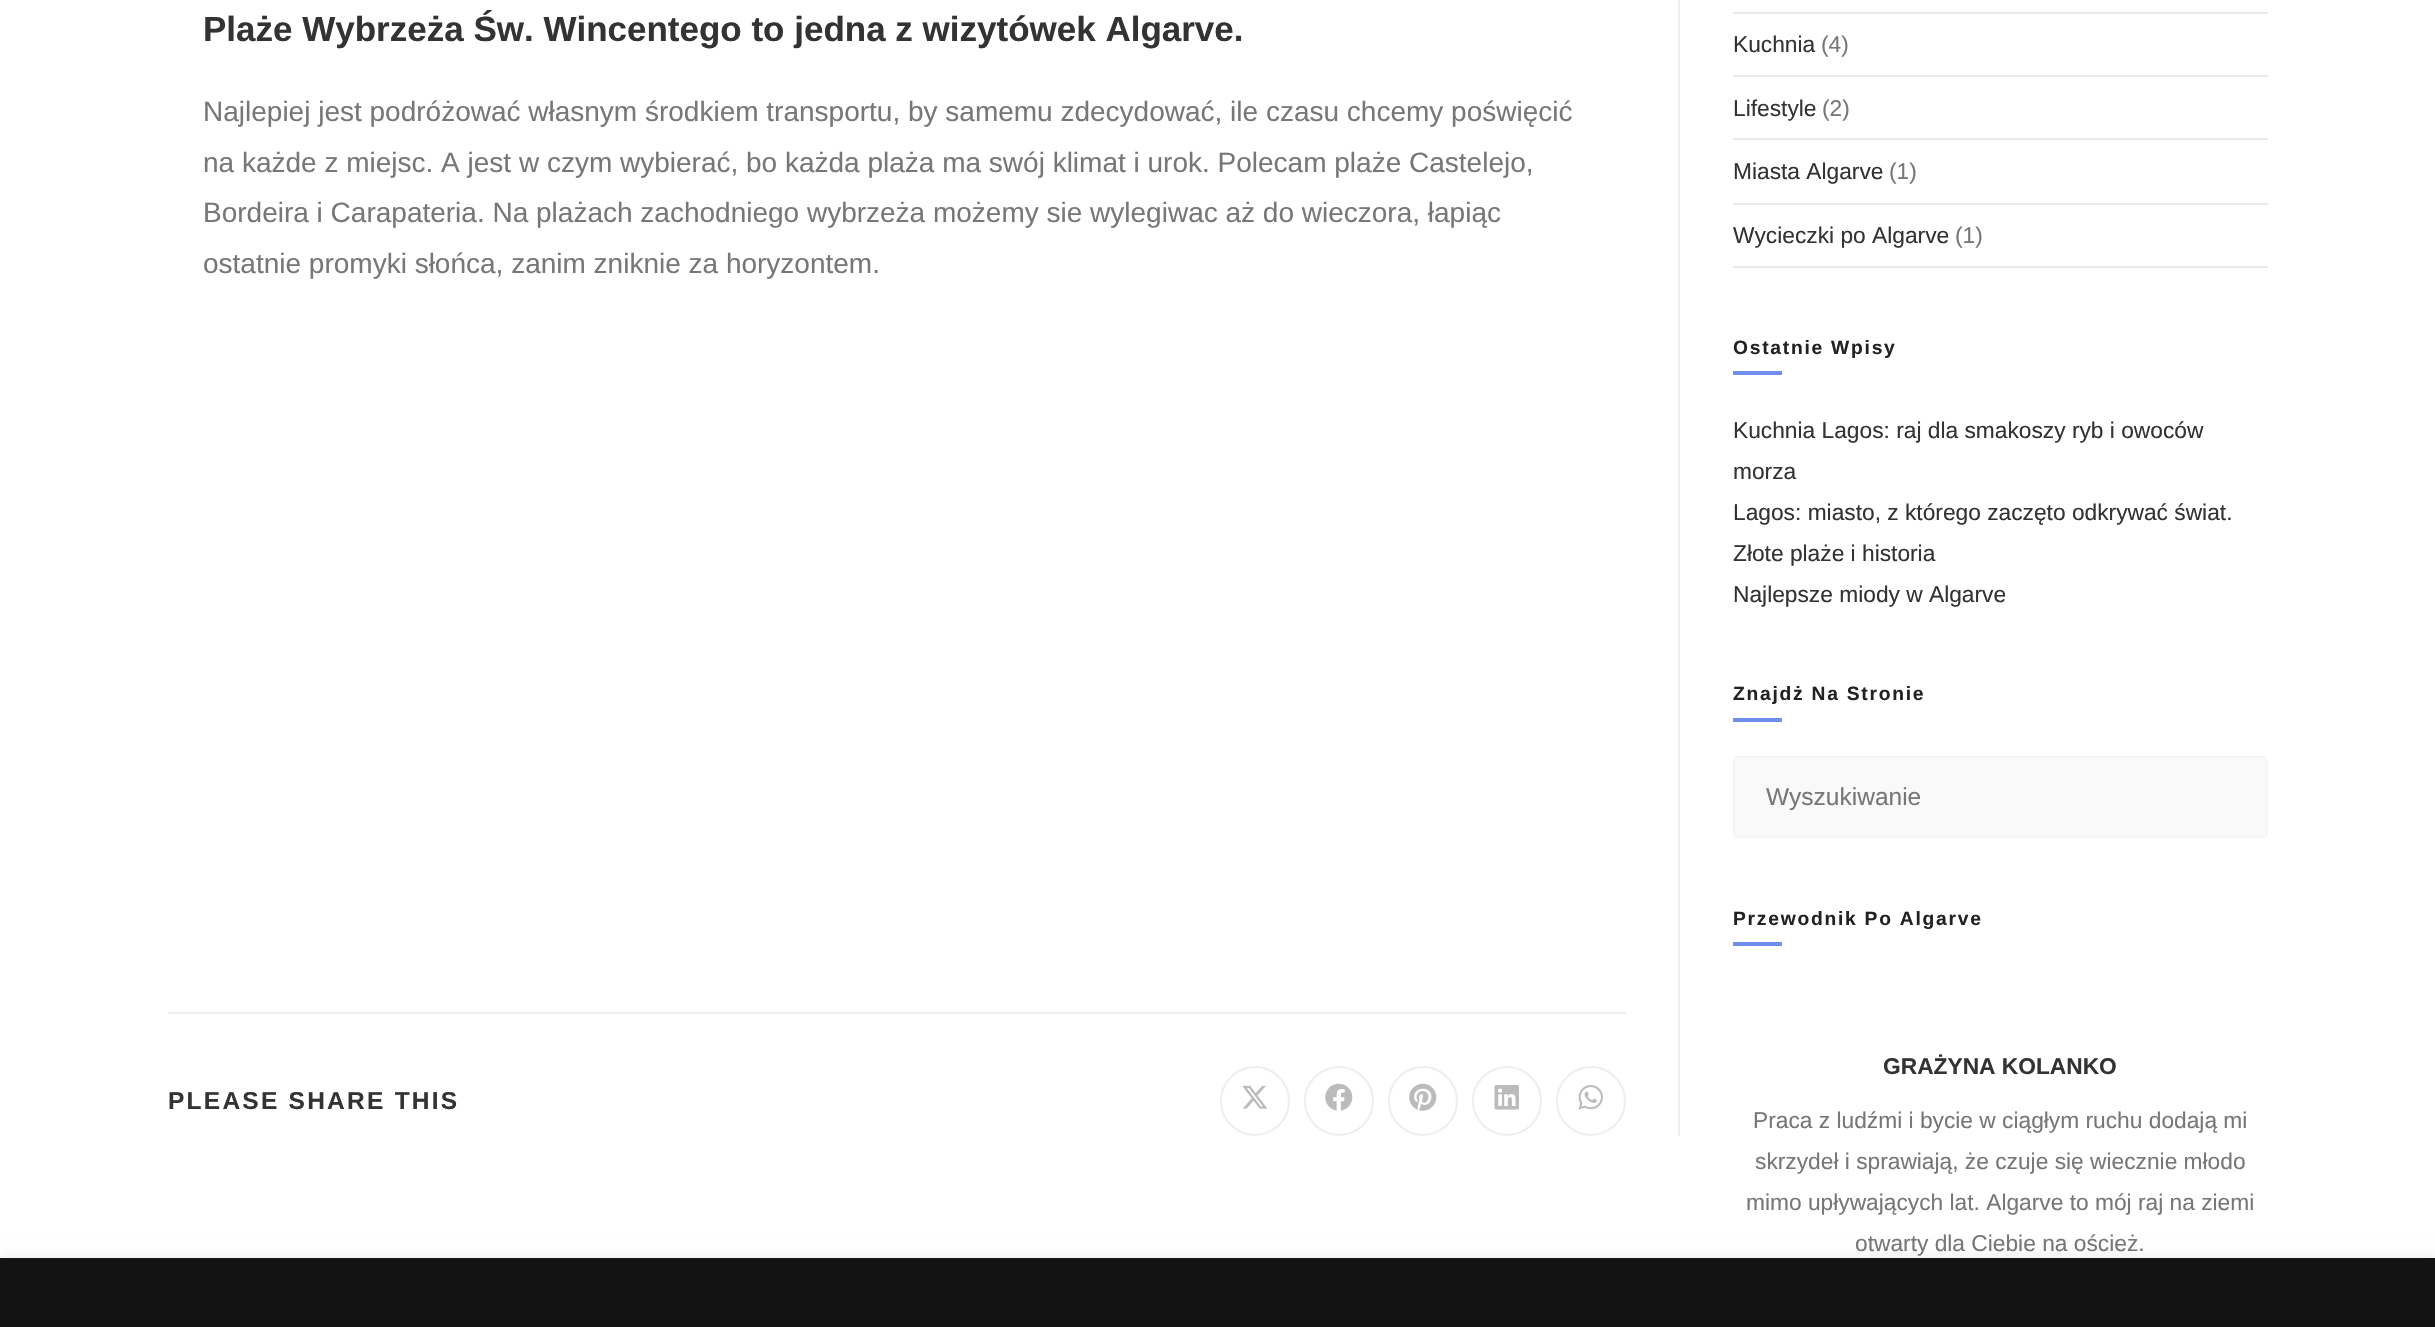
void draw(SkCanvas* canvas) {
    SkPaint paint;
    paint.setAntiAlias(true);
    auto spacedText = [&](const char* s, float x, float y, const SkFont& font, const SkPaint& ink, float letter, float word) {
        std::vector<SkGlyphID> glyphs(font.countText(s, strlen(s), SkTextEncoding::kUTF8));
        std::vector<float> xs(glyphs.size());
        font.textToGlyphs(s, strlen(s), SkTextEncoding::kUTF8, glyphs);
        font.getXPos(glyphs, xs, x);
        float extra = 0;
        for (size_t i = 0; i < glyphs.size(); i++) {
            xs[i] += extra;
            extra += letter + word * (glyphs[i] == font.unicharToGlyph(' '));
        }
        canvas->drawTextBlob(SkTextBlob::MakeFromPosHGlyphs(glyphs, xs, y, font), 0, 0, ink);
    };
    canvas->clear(0xFFFFFFFF);
    paint.setColor(0xFFEEEEEE);
    canvas->drawRect(SkRect::MakeXYWH(1678, 0, 2, 1136), paint);
    SkFont font1(fontMgr->matchFamilyStyle("Liberation Sans", SkFontStyle::Bold()), 35);
    font1.setSubpixel(true);
    paint.setColor(0xFF333333);
    canvas->drawString("Plaże Wybrzeża Św. Wincentego to jedna z wizytówek Algarve.", 203, 41, font1, paint);
    SkFont font2(fontMgr->matchFamilyStyle("Liberation Sans", SkFontStyle::Normal()), 28);
    font2.setSubpixel(true);
    paint.setColor(0xFF777777);
    canvas->drawString("Najlepiej jest podróżować własnym środkiem transportu, by samemu zdecydować, ile czasu chcemy poświęcić", 203, 121, font2, paint);
    canvas->drawString("na każde z miejsc. A jest w czym wybierać, bo każda plaża ma swój klimat i urok. Polecam plaże Castelejo,", 203, 172, font2, paint);
    canvas->drawString("Bordeira i Carapateria. Na plażach zachodniego wybrzeża możemy sie wylegiwac aż do wieczora, łapiąc", 203, 222, font2, paint);
    canvas->drawString("ostatnie promyki słońca, zanim zniknie za horyzontem.", 203, 273, font2, paint);
    paint.setColor(0xFFEEEEEE);
    canvas->drawRect(SkRect::MakeXYWH(168, 1012, 1458, 2), paint);
    SkFont font3(fontMgr->matchFamilyStyle("Liberation Sans", SkFontStyle::Bold()), 24.5f);
    font3.setSubpixel(true);
    paint.setColor(0xFF333333);
    spacedText("PLEASE SHARE THIS", 168, 1109, font3, paint, 2.25f, 0);
    paint.setStyle(SkPaint::kStroke_Style);
    paint.setStrokeWidth(2);
    paint.setColor(0xFFEEEEEE);
    canvas->drawCircle(1255, 1101, 34, paint);
    canvas->drawImageRect(SkImages::DeferredFromEncodedData(SkData::MakeFromFileName("img1.png")), SkRect::MakeXYWH(1242, 1085, 26, 24), SkSamplingOptions());
    canvas->drawCircle(1339, 1101, 34, paint);
    canvas->drawImageRect(SkImages::DeferredFromEncodedData(SkData::MakeFromFileName("img2.png")), SkRect::MakeXYWH(1325, 1083, 28, 28), SkSamplingOptions());
    canvas->drawCircle(1423, 1101, 34, paint);
    canvas->drawImageRect(SkImages::DeferredFromEncodedData(SkData::MakeFromFileName("img3.png")), SkRect::MakeXYWH(1409, 1083, 28, 28), SkSamplingOptions());
    canvas->drawCircle(1507, 1101, 34, paint);
    canvas->drawImageRect(SkImages::DeferredFromEncodedData(SkData::MakeFromFileName("img4.png")), SkRect::MakeXYWH(1494, 1085, 25, 25), SkSamplingOptions());
    canvas->drawCircle(1591, 1101, 34, paint);
    canvas->drawImageRect(SkImages::DeferredFromEncodedData(SkData::MakeFromFileName("img5.png")), SkRect::MakeXYWH(1578, 1085, 25, 25), SkSamplingOptions());
    paint.setStyle(SkPaint::kFill_Style);
    paint.setColor(0xFFE9E9E9);
    canvas->drawRect(SkRect::MakeXYWH(1733, 12, 535, 2), paint);
    canvas->drawRect(SkRect::MakeXYWH(1733, 75, 535, 2), paint);
    SkFont font4(fontMgr->matchFamilyStyle("Liberation Sans", SkFontStyle::Normal()), 22.75f);
    font4.setSubpixel(true);
    paint.setColor(0xFF333333);
    canvas->drawString("Kuchnia", 1733, 52, font4, paint);
    paint.setColor(0xFF777777);
    canvas->drawString("(4)", 1821, 52, font4, paint);
    paint.setColor(0xFFE9E9E9);
    canvas->drawRect(SkRect::MakeXYWH(1733, 138, 535, 2), paint);
    paint.setColor(0xFF333333);
    canvas->drawString("Lifestyle", 1733, 116, font4, paint);
    paint.setColor(0xFF777777);
    canvas->drawString("(2)", 1822, 116, font4, paint);
    paint.setColor(0xFFE9E9E9);
    canvas->drawRect(SkRect::MakeXYWH(1733, 203, 535, 2), paint);
    paint.setColor(0xFF333333);
    canvas->drawString("Miasta Algarve", 1733, 179, font4, paint);
    paint.setColor(0xFF777777);
    canvas->drawString("(1)", 1889, 179, font4, paint);
    paint.setColor(0xFFE9E9E9);
    canvas->drawRect(SkRect::MakeXYWH(1733, 266, 535, 2), paint);
    paint.setColor(0xFF333333);
    canvas->drawString("Wycieczki po Algarve", 1733, 243, font4, paint);
    paint.setColor(0xFF777777);
    canvas->drawString("(1)", 1955, 243, font4, paint);
    SkFont font5(fontMgr->matchFamilyStyle("Liberation Sans", SkFontStyle::Bold()), 19.25f);
    font5.setSubpixel(true);
    paint.setColor(0xFF222222);
    spacedText("Ostatnie Wpisy", 1733, 354, font5, paint, 1.75f, 0);
    paint.setColor(0xFF6E8FEF);
    canvas->drawRect(SkRect::MakeXYWH(1733, 371, 49, 4), paint);
    paint.setColor(0xFF333333);
    canvas->drawString("Kuchnia Lagos: raj dla smakoszy ryb i owoców", 1733, 438, font4, paint);
    canvas->drawString("morza", 1733, 479, font4, paint);
    canvas->drawString("Lagos: miasto, z którego zaczęto odkrywać świat.", 1733, 520, font4, paint);
    canvas->drawString("Złote plaże i historia", 1733, 561, font4, paint);
    canvas->drawString("Najlepsze miody w Algarve", 1733, 602, font4, paint);
    paint.setColor(0xFF222222);
    spacedText("Znajdż Na Stronie", 1733, 700, font5, paint, 1.75f, 0);
    paint.setColor(0xFF6E8FEF);
    canvas->drawRect(SkRect::MakeXYWH(1733, 718, 49, 4), paint);
    paint.setColor(0xFFF9F9F9);
    canvas->drawRoundRect(SkRect::MakeXYWH(1734, 757, 533, 80), 4, 4, paint);
    paint.setStyle(SkPaint::kStroke_Style);
    paint.setColor(0xFFF5F5F5);
    canvas->drawRoundRect(SkRect::MakeXYWH(1734, 757, 533, 80), 4, 4, paint);
    SkFont font6(fontMgr->matchFamilyStyle("Liberation Sans", SkFontStyle::Normal()), 24.5f);
    font6.setSubpixel(true);
    paint.setStyle(SkPaint::kFill_Style);
    paint.setColor(0xFF777777);
    canvas->drawString("Wyszukiwanie", 1766, 805, font6, paint);
    paint.setColor(0xFF222222);
    spacedText("Przewodnik Po Algarve", 1733, 925, font5, paint, 1.75f, 0);
    paint.setColor(0xFF6E8FEF);
    canvas->drawRect(SkRect::MakeXYWH(1733, 942, 49, 4), paint);
    SkFont font7(fontMgr->matchFamilyStyle("Liberation Sans", SkFontStyle::Bold()), 22.75f);
    font7.setSubpixel(true);
    paint.setColor(0xFF333333);
    canvas->drawString("GRAŻYNA KOLANKO", 1883, 1074, font7, paint);
    paint.setColor(0xFF777777);
    canvas->drawString("Praca z ludźmi i bycie w ciągłym ruchu dodają mi", 1753, 1128, font4, paint);
    canvas->drawString("skrzydeł i sprawiają, że czuje się wiecznie młodo", 1755, 1169, font4, paint);
    canvas->drawString("mimo upływających lat. Algarve to mój raj na ziemi", 1746, 1210, font4, paint);
    canvas->drawString("otwarty dla Ciebie na oścież.", 1855, 1251, font4, paint);
    paint.setColor(0x1A000000);
    paint.setMaskFilter(SkMaskFilter::MakeBlur(kNormal_SkBlurStyle, 7));
    canvas->drawRect(SkRect::MakeXYWH(0, 1258, 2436, 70), paint);
    paint.setMaskFilter(nullptr);
    paint.setColor(0xFF131313);
    canvas->drawRect(SkRect::MakeXYWH(0, 1258, 2435, 69), paint);
}
